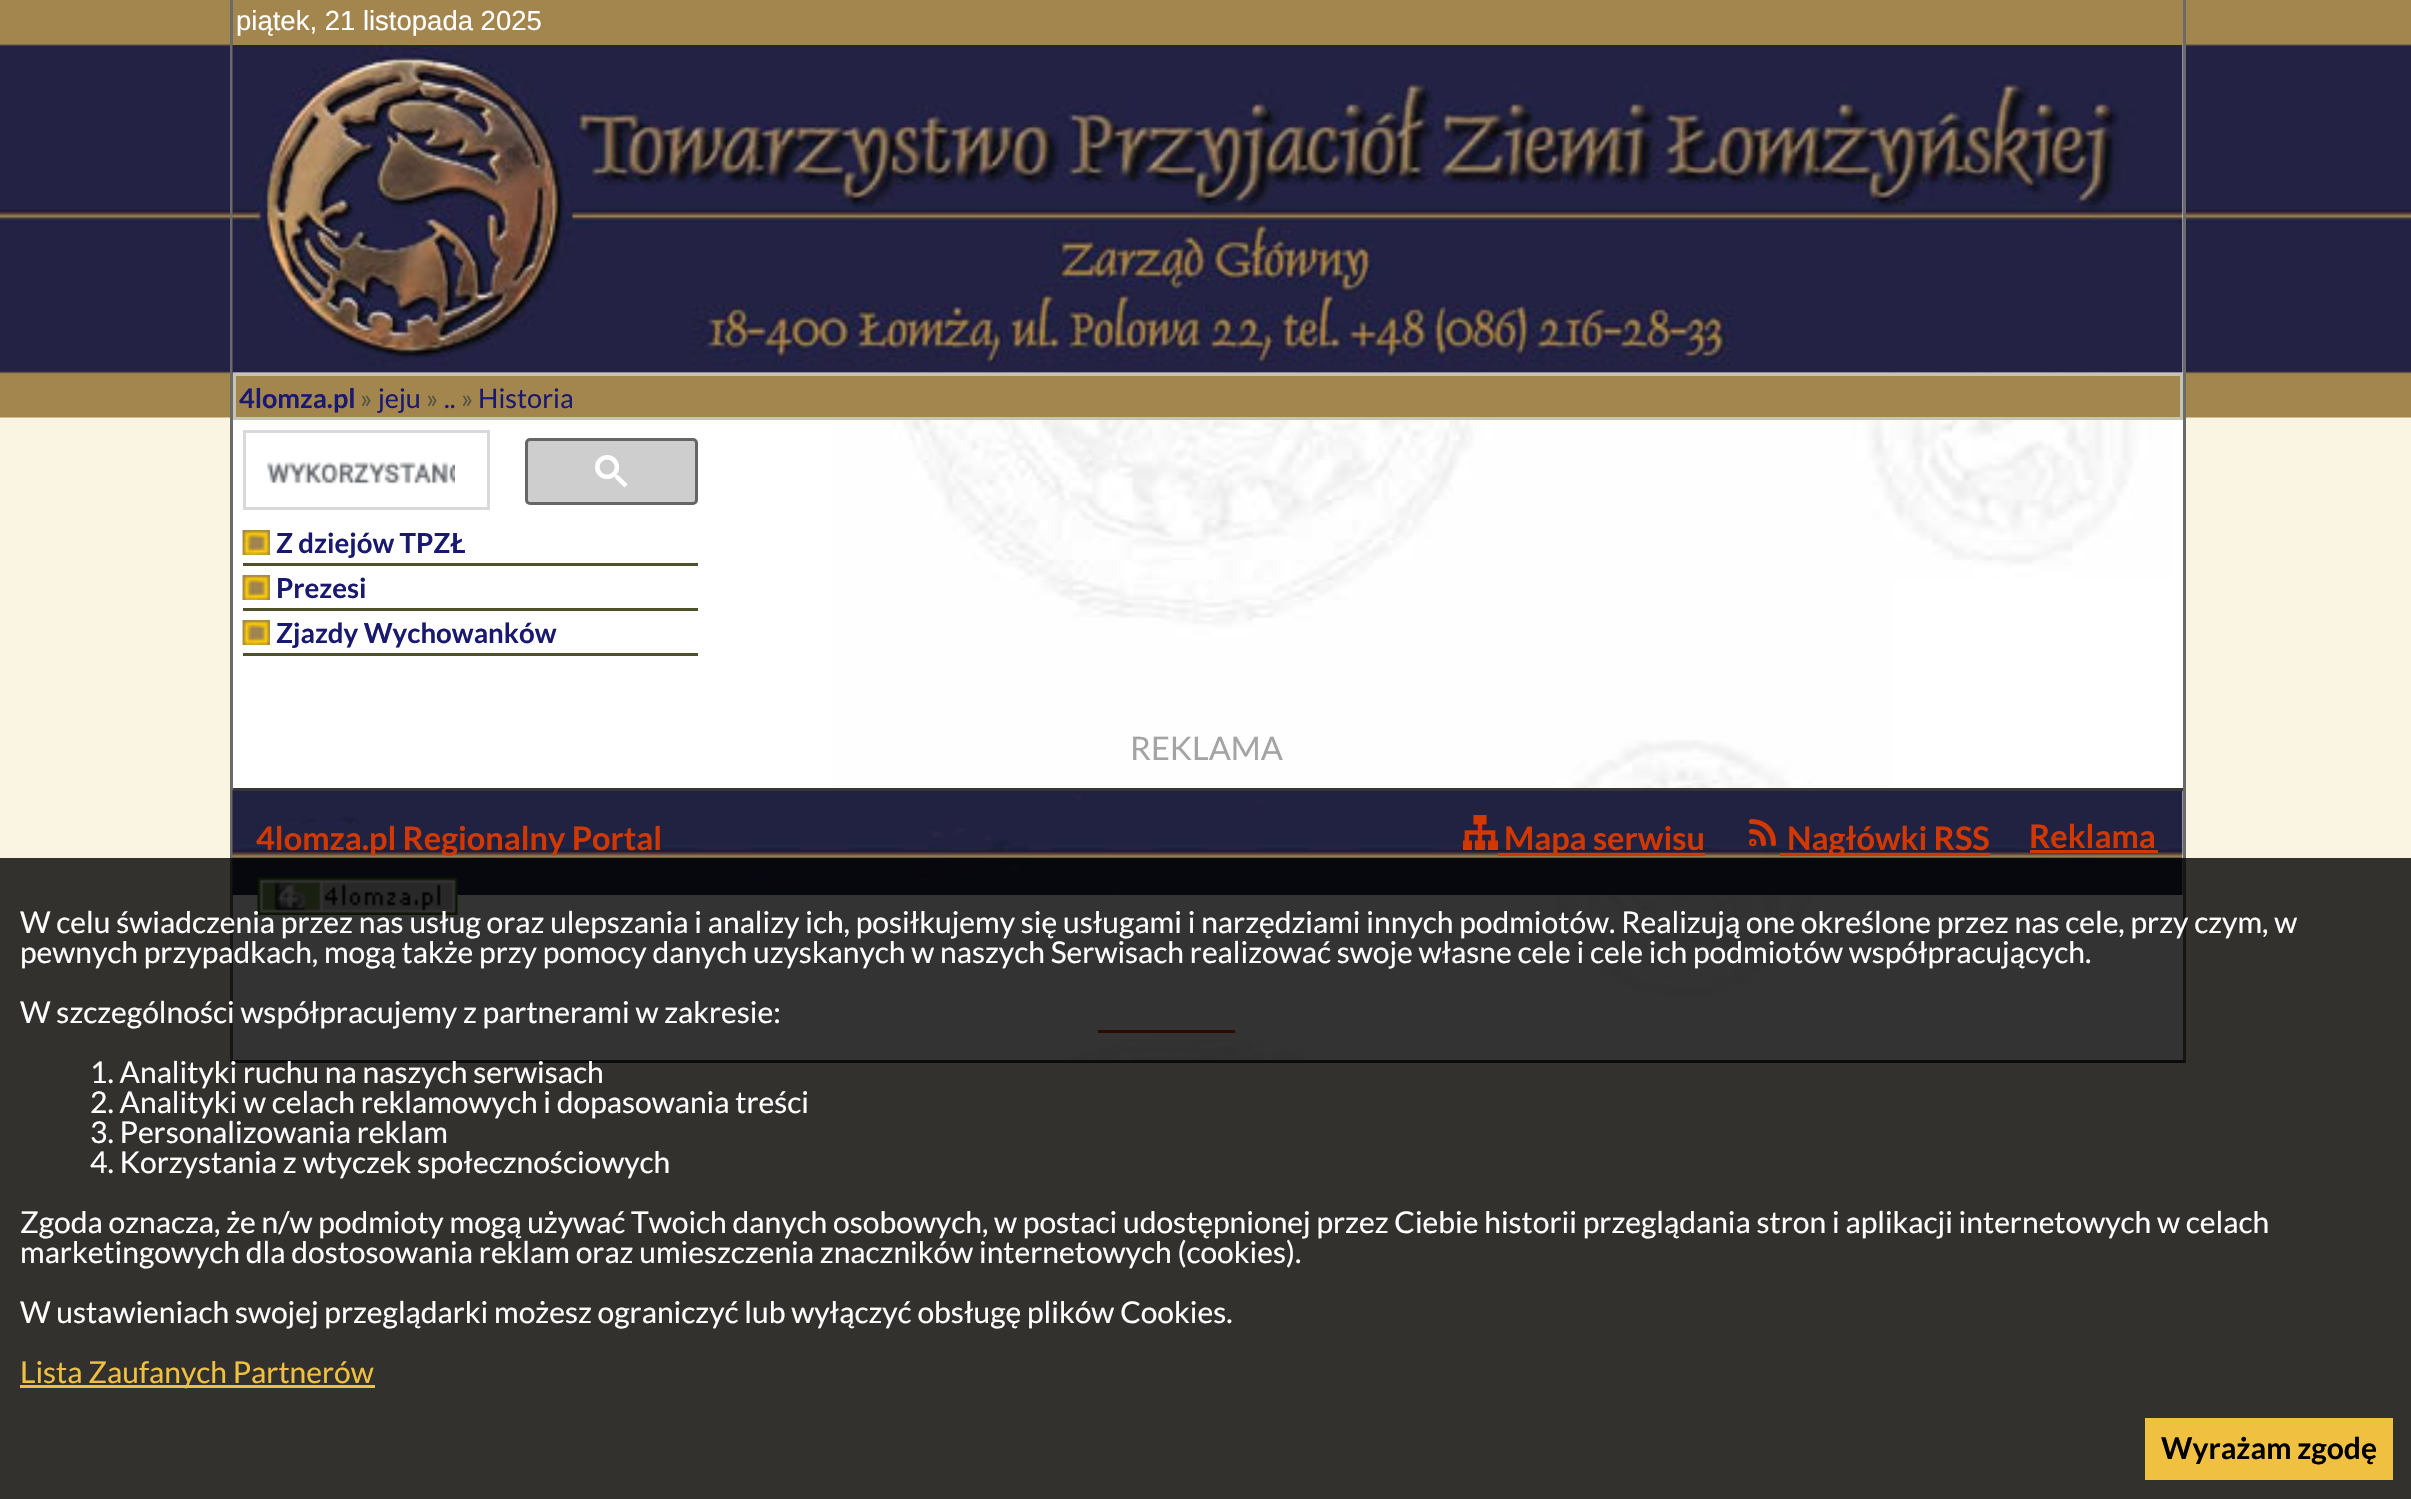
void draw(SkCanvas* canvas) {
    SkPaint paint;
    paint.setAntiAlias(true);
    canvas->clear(0xFFFAF4E2);
    canvas->drawImageRect(SkImages::DeferredFromEncodedData(SkData::MakeFromFileName("img1.png")), SkRect::MakeXYWH(0, 0, 2411, 418), SkSamplingOptions());
    canvas->drawImageRect(SkImages::DeferredFromEncodedData(SkData::MakeFromFileName("img2.png")), SkRect::MakeXYWH(233, 45, 1950, 1015), SkSamplingOptions());
    paint.setColor(0xFF6A6A6A);
    canvas->drawRect(SkRect::MakeXYWH(2183, 0, 3, 1063), paint);
    paint.setColor(0xFF3A3A3A);
    canvas->drawRect(SkRect::MakeXYWH(230, 1060, 1955, 3), paint);
    paint.setColor(0xFF6A6A6A);
    canvas->drawRect(SkRect::MakeXYWH(230, 0, 3, 1063), paint);
    paint.setColor(0xFFA3864E);
    canvas->drawRect(SkRect::MakeXYWH(233, 44, 1950, 1), paint);
    SkFont font1(fontMgr->matchFamilyStyle("Liberation Sans", SkFontStyle::Normal()), 27.5f);
    font1.setSubpixel(true);
    paint.setColor(0xFFFFFFFF);
    canvas->drawString("piątek, 21 listopada 2025", 236, 30, font1, paint);
    canvas->drawImageRect(SkImages::DeferredFromEncodedData(SkData::MakeFromFileName("img3.png")), SkRect::MakeXYWH(232, 45, 1951, 328), SkSamplingOptions());
    paint.setColor(0xFFA3864E);
    canvas->drawRect(SkRect::MakeXYWH(234.5f, 374.5f, 1947, 44), paint);
    paint.setStyle(SkPaint::kStroke_Style);
    paint.setStrokeWidth(3);
    paint.setColor(0xFFC6C5B4);
    canvas->drawRect(SkRect::MakeXYWH(234.5f, 374.5f, 1947, 44), paint);
    SkFont font2(fontMgr->matchFamilyStyle("Lato", SkFontStyle::Bold()), 27);
    font2.setSubpixel(true);
    paint.setStyle(SkPaint::kFill_Style);
    paint.setColor(0xFF191970);
    canvas->drawString("4lomza.pl", 239, 408, font2, paint);
    SkFont font3(fontMgr->matchFamilyStyle("Lato", SkFontStyle::Normal()), 27);
    font3.setSubpixel(true);
    paint.setColor(0xFF555444);
    canvas->drawString("»", 360, 408, font3, paint);
    paint.setColor(0xFF191970);
    canvas->drawString("jeju", 378, 408, font3, paint);
    paint.setColor(0xFF555444);
    canvas->drawString("»", 426, 408, font3, paint);
    paint.setColor(0xFF191970);
    canvas->drawString("..", 444, 408, font3, paint);
    paint.setColor(0xFF555444);
    canvas->drawString("»", 461, 408, font3, paint);
    paint.setColor(0xFF191970);
    canvas->drawString("Historia", 478, 408, font3, paint);
    paint.setStyle(SkPaint::kStroke_Style);
    paint.setColor(0xFFD9D9D9);
    canvas->drawRect(SkRect::MakeXYWH(244.5f, 431.5f, 244, 77), paint);
    canvas->drawImageRect(SkImages::DeferredFromEncodedData(SkData::MakeFromFileName("img4.png")), SkRect::MakeXYWH(267, 462, 188, 22), SkSamplingOptions());
    paint.setStyle(SkPaint::kFill_Style);
    paint.setColor(0xFFCECECE);
    canvas->drawRoundRect(SkRect::MakeXYWH(526.5f, 439.5f, 170, 64), 3.5f, 3.5f, paint);
    paint.setStyle(SkPaint::kStroke_Style);
    paint.setColor(0xFF666666);
    canvas->drawRoundRect(SkRect::MakeXYWH(526.5f, 439.5f, 170, 64), 3.5f, 3.5f, paint);
    canvas->drawImageRect(SkImages::DeferredFromEncodedData(SkData::MakeFromFileName("img5.png")), SkRect::MakeXYWH(595, 455, 33, 33), SkSamplingOptions());
    canvas->drawImageRect(SkImages::DeferredFromEncodedData(SkData::MakeFromFileName("img6.png")), SkRect::MakeXYWH(242, 530, 28, 25), SkSamplingOptions());
    paint.setStyle(SkPaint::kFill_Style);
    paint.setColor(0xFF50512B);
    canvas->drawRect(SkRect::MakeXYWH(243, 563, 455, 3), paint);
    SkFont font4(fontMgr->matchFamilyStyle("Lato", SkFontStyle::Bold()), 27.6f);
    font4.setSubpixel(true);
    paint.setColor(0xFF191970);
    canvas->drawString("Z dziejów TPZŁ", 276, 553, font4, paint);
    canvas->drawImageRect(SkImages::DeferredFromEncodedData(SkData::MakeFromFileName("img7.png")), SkRect::MakeXYWH(242, 575, 28, 25), SkSamplingOptions());
    paint.setColor(0xFF50512B);
    canvas->drawRect(SkRect::MakeXYWH(243, 608, 455, 3), paint);
    paint.setColor(0xFF191970);
    canvas->drawString("Prezesi", 276, 598, font4, paint);
    canvas->drawImageRect(SkImages::DeferredFromEncodedData(SkData::MakeFromFileName("img6.png")), SkRect::MakeXYWH(242, 620, 28, 25), SkSamplingOptions());
    paint.setColor(0xFF50512B);
    canvas->drawRect(SkRect::MakeXYWH(243, 653, 455, 3), paint);
    paint.setColor(0xFF191970);
    canvas->drawString("Zjazdy Wychowanków", 276, 643, font4, paint);
    SkFont font5(fontMgr->matchFamilyStyle("Lato", SkFontStyle::Normal()), 32.5f);
    font5.setSubpixel(true);
    paint.setColor(0xFFA4A4A4);
    canvas->drawString("REKLAMA", 1130, 760, font5, paint);
    canvas->drawImageRect(SkImages::DeferredFromEncodedData(SkData::MakeFromFileName("img8.png")), SkRect::MakeXYWH(232, 790, 1951, 105), SkSamplingOptions());
    paint.setColor(0xFF363636);
    canvas->drawRect(SkRect::MakeXYWH(233, 788, 1950, 3), paint);
    SkFont font6(fontMgr->matchFamilyStyle("Lato", SkFontStyle::Bold()), 32.5f);
    font6.setSubpixel(true);
    paint.setColor(0xFFD13800);
    canvas->drawString("4lomza.pl Regionalny Portal", 256, 850, font6, paint);
    canvas->drawImageRect(SkImages::DeferredFromEncodedData(SkData::MakeFromFileName("img9.png")), SkRect::MakeXYWH(257, 877, 201, 38), SkSamplingOptions());
    canvas->drawImageRect(SkImages::DeferredFromEncodedData(SkData::MakeFromFileName("img10.png")), SkRect::MakeXYWH(1463, 815, 35, 35), SkSamplingOptions());
    canvas->drawRect(SkRect::MakeXYWH(1498, 853, 207, 3), paint);
    canvas->drawString("Mapa serwisu", 1504, 850, font6, paint);
    paint.setStyle(SkPaint::kStroke_Style);
    paint.setStrokeWidth(5.1f);
    paint.setStrokeCap(SkPaint::kRound_Cap);
    paint.setStrokeJoin(SkPaint::kRound_Join);
    canvas->drawPath(SkPathBuilder().moveTo(1763.5f, 843.5f).cubicTo(1763.5f, 836, 1759, 831.5f, 1751.5f, 831.5f).moveTo(1751.5f, 821.5f).cubicTo(1764.5f, 821.5f, 1773.5f, 830.5f, 1773.5f, 843.5f).moveTo(1754, 842.5f).cubicTo(1754, 844, 1751.5f, 844, 1751.5f, 842.5f).cubicTo(1751.5f, 841, 1754, 841, 1754, 842.5f).close().detach(), paint);
    paint.setStyle(SkPaint::kFill_Style);
    canvas->drawRect(SkRect::MakeXYWH(1780, 853, 210, 3), paint);
    canvas->drawString("Nagłówki RSS", 1787, 850, font6, paint);
    canvas->drawString("Reklama", 2029, 848, font6, paint);
    canvas->drawRect(SkRect::MakeXYWH(2030, 850, 128, 3), paint);
    canvas->drawRect(SkRect::MakeXYWH(1098, 1030, 137, 3), paint);
    paint.setColor(0xCC000000);
    canvas->drawRect(SkRect::MakeXYWH(0, 858, 2411, 641), paint);
    SkFont font7(fontMgr->matchFamilyStyle("Lato", SkFontStyle::Normal()), 30);
    font7.setSubpixel(true);
    paint.setColor(0xFFFFFFFF);
    canvas->drawString("W celu świadczenia przez nas usług oraz ulepszania i analizy ich, posiłkujemy się usługami i narzędziami innych podmiotów. Realizują one określone przez nas cele, przy czym, w", 20, 933, font7, paint);
    canvas->drawString("pewnych przypadkach, mogą także przy pomocy danych uzyskanych w naszych Serwisach realizować swoje własne cele i cele ich podmiotów współpracujących.", 20, 963, font7, paint);
    canvas->drawString("W szczególności współpracujemy z partnerami w zakresie:", 20, 1023, font7, paint);
    canvas->drawString("1. Analityki ruchu na naszych serwisach", 90, 1083, font7, paint);
    canvas->drawString("2. Analityki w celach reklamowych i dopasowania treści", 90, 1113, font7, paint);
    canvas->drawString("3. Personalizowania reklam", 90, 1143, font7, paint);
    canvas->drawString("4. Korzystania z wtyczek społecznościowych", 90, 1173, font7, paint);
    canvas->drawString("Zgoda oznacza, że n/w podmioty mogą używać Twoich danych osobowych, w postaci udostępnionej przez Ciebie historii przeglądania stron i aplikacji internetowych w celach", 20, 1233, font7, paint);
    canvas->drawString("marketingowych dla dostosowania reklam oraz umieszczenia znaczników internetowych (cookies).", 20, 1263, font7, paint);
    canvas->drawString("W ustawieniach swojej przeglądarki możesz ograniczyć lub wyłączyć obsługę plików Cookies.", 20, 1323, font7, paint);
    paint.setColor(0xFFF0C040);
    canvas->drawRect(SkRect::MakeXYWH(20, 1385, 355, 3), paint);
    canvas->drawString("Lista Zaufanych Partnerów", 20, 1383, font7, paint);
    canvas->drawRect(SkRect::MakeXYWH(2145, 1418, 248, 62), paint);
    SkFont font8(fontMgr->matchFamilyStyle("Lato", SkFontStyle::Bold()), 30);
    font8.setSubpixel(true);
    paint.setColor(0xFF000000);
    canvas->drawString("Wyrażam zgodę", 2161, 1459, font8, paint);
}
